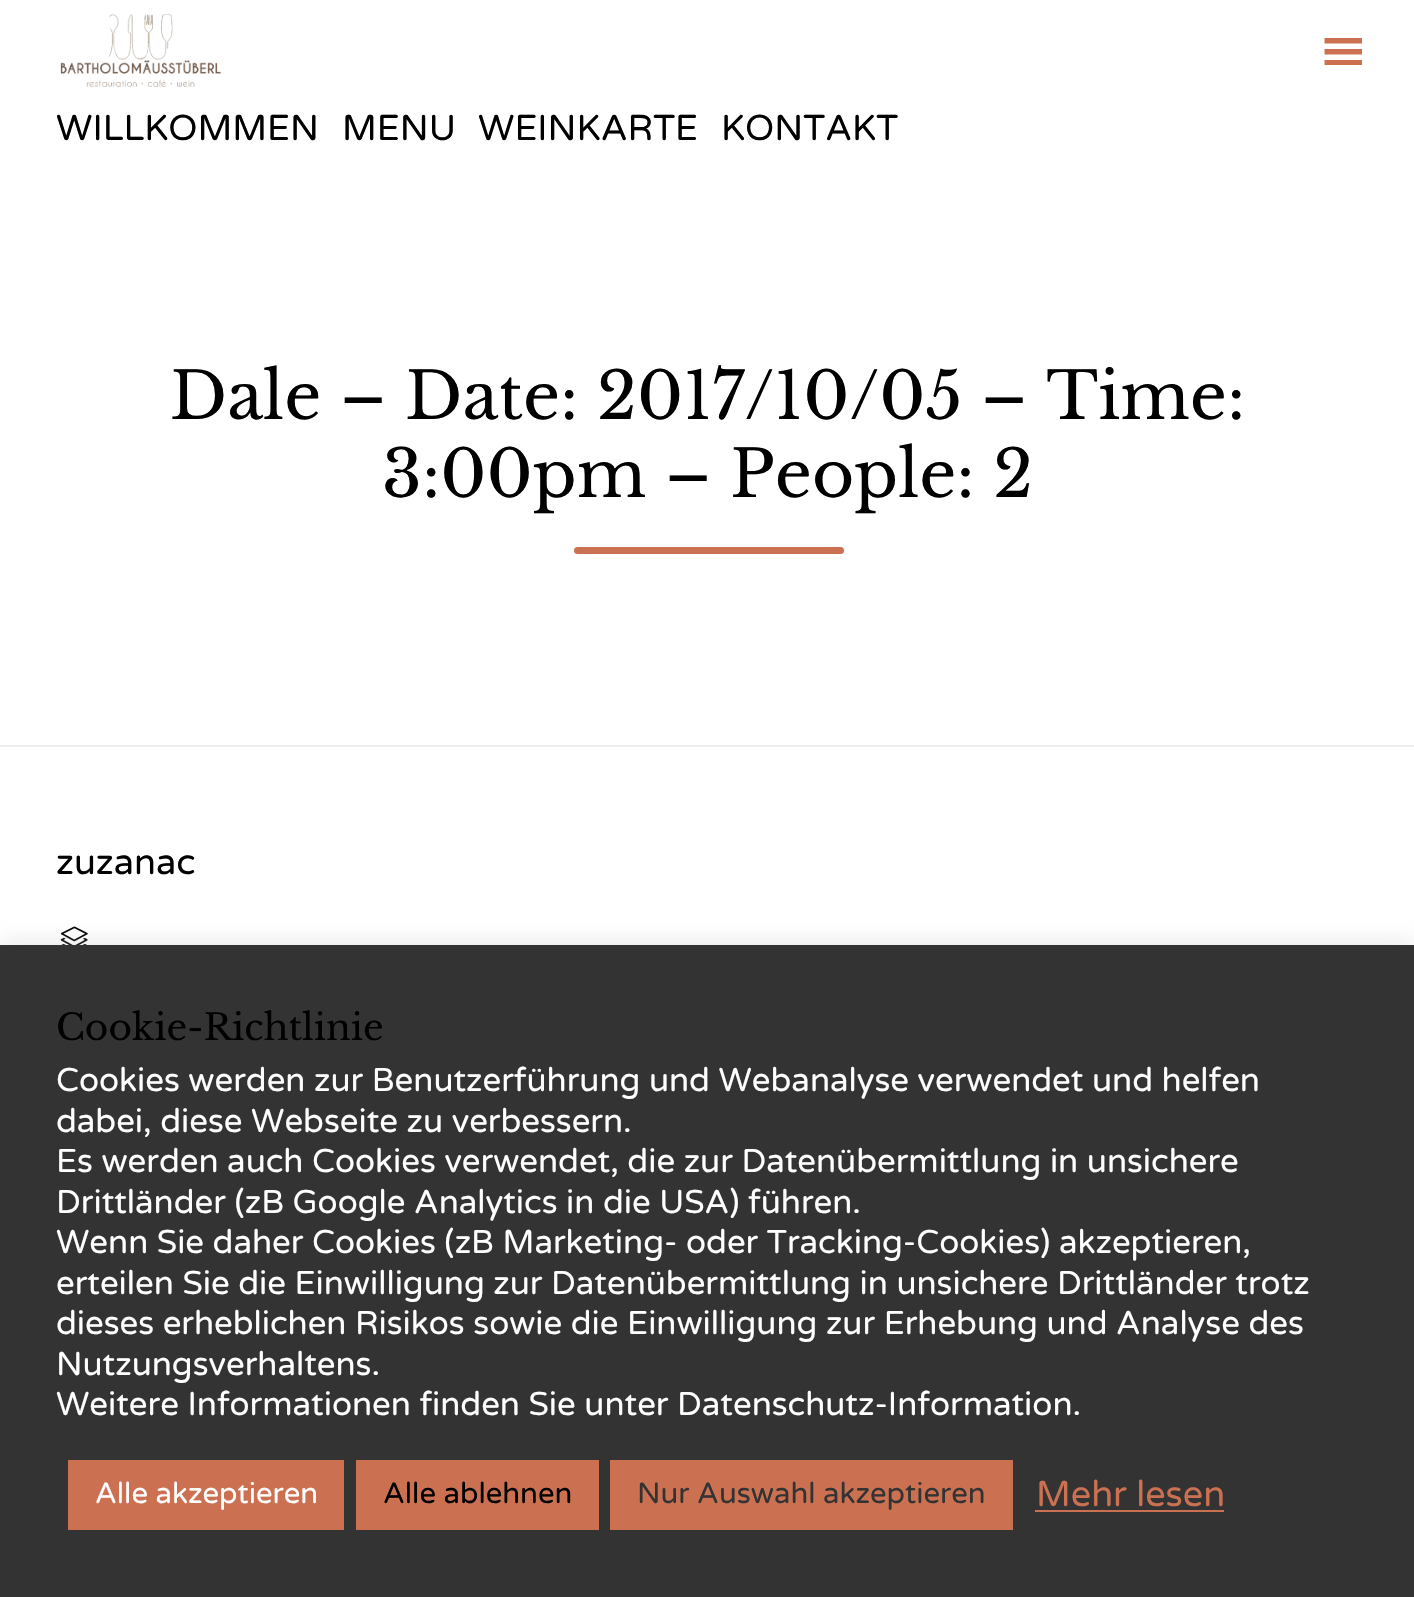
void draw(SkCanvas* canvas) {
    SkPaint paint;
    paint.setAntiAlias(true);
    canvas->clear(0xFFFFFFFF);
    canvas->drawImageRect(SkImages::DeferredFromEncodedData(SkData::MakeFromFileName("img1.png")), SkRect::MakeXYWH(60, 14, 161, 73), SkSamplingOptions());
    paint.setColor(0xFFCB7152);
    canvas->drawPath(SkPathBuilder().moveTo(1324.5f, 65).lineTo(1362, 65).lineTo(1362, 60).lineTo(1324.5f, 60).close().moveTo(1324.5f, 38).lineTo(1324.5f, 43.5f).lineTo(1362, 43.5f).lineTo(1362, 38).close().moveTo(1324.5f, 54.5f).lineTo(1362, 54.5f).lineTo(1362, 49).lineTo(1324.5f, 49).close().detach(), paint);
    SkFont font1(fontMgr->matchFamilyStyle("Varela Round", SkFontStyle::Normal()), 36);
    font1.setSubpixel(true);
    paint.setColor(0xFF000000);
    canvas->drawString("WILLKOMMEN", 56, 140, font1, paint);
    canvas->drawString("MENU", 342, 140, font1, paint);
    canvas->drawString("WEINKARTE", 478, 140, font1, paint);
    canvas->drawString("KONTAKT", 721, 140, font1, paint);
    paint.setColor(0xFFEDEDED);
    canvas->drawRect(SkRect::MakeXYWH(0, 745, 1414, 2), paint);
    SkFont font2(fontMgr->matchFamilyStyle("Libre Baskerville", SkFontStyle::Normal()), 64.75f);
    font2.setSubpixel(true);
    paint.setColor(0xFF000000);
    canvas->drawString("Dale – Date: 2017/10/05 – Time:", 170, 419, font2, paint);
    canvas->drawString("3:00pm – People: 2", 382, 497, font2, paint);
    paint.setColor(0xFFCB7152);
    canvas->drawRoundRect(SkRect::MakeXYWH(574, 547, 270, 7), 3.5f, 3.5f, paint);
    paint.setColor(0xFF000000);
    canvas->drawString("zuzanac", 56, 874, font1, paint);
    canvas->drawImageRect(SkImages::DeferredFromEncodedData(SkData::MakeFromFileName("img2.png")), SkRect::MakeXYWH(60, 926, 28, 19), SkSamplingOptions());
    paint.setColor(0x4DACABAB);
    paint.setMaskFilter(SkMaskFilter::MakeBlur(kNormal_SkBlurStyle, 11));
    canvas->drawRect(SkRect::MakeXYWH(0, 943, 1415, 652), paint);
    paint.setMaskFilter(nullptr);
    paint.setColor(0xFF333333);
    canvas->drawRect(SkRect::MakeXYWH(0, 945, 1414, 652), paint);
    SkFont font3(fontMgr->matchFamilyStyle("Libre Baskerville", SkFontStyle::Normal()), 36);
    font3.setSubpixel(true);
    paint.setColor(0xFF000000);
    canvas->drawString("Cookie-Richtlinie", 56, 1040, font3, paint);
    SkFont font4(fontMgr->matchFamilyStyle("Varela Round", SkFontStyle::Normal()), 33);
    font4.setSubpixel(true);
    paint.setColor(0xFFFFFFFF);
    canvas->drawString("Cookies werden zur Benutzerführung und Webanalyse verwendet und helfen", 56, 1091, font4, paint);
    canvas->drawString("dabei, diese Webseite zu verbessern.", 56, 1132, font4, paint);
    canvas->drawString("Es werden auch Cookies verwendet, die zur Datenübermittlung in unsichere", 56, 1172, font4, paint);
    canvas->drawString("Drittländer (zB Google Analytics in die USA) führen.", 56, 1213, font4, paint);
    canvas->drawString("Wenn Sie daher Cookies (zB Marketing- oder Tracking-Cookies) akzeptieren,", 56, 1253, font4, paint);
    canvas->drawString("erteilen Sie die Einwilligung zur Datenübermittlung in unsichere Drittländer trotz", 56, 1294, font4, paint);
    canvas->drawString("dieses erheblichen Risikos sowie die Einwilligung zur Erhebung und Analyse des", 56, 1334, font4, paint);
    canvas->drawString("Nutzungsverhaltens.", 56, 1375, font4, paint);
    canvas->drawString("Weitere Informationen finden Sie unter Datenschutz-Information.", 56, 1415, font4, paint);
    paint.setColor(0xFFCB7152);
    canvas->drawRect(SkRect::MakeXYWH(68, 1460, 276, 70), paint);
    SkFont font5(fontMgr->matchFamilyStyle("Varela Round", SkFontStyle::Normal()), 29.25f);
    font5.setSubpixel(true);
    paint.setColor(0xFFFFFFFF);
    canvas->drawString("Alle akzeptieren", 95, 1503, font5, paint);
    paint.setColor(0xFFCB7152);
    canvas->drawRect(SkRect::MakeXYWH(356, 1460, 243, 70), paint);
    paint.setColor(0xFF000000);
    canvas->drawString("Alle ablehnen", 383, 1503, font5, paint);
    paint.setColor(0xFFCB7152);
    canvas->drawRect(SkRect::MakeXYWH(610, 1460, 403, 70), paint);
    paint.setColor(0xFF333333);
    canvas->drawString("Nur Auswahl akzeptieren", 637, 1503, font5, paint);
    paint.setColor(0xFFCB7152);
    canvas->drawString("Mehr lesen", 1036, 1506, font1, paint);
    canvas->drawRect(SkRect::MakeXYWH(1035, 1510, 189, 2), paint);
}
